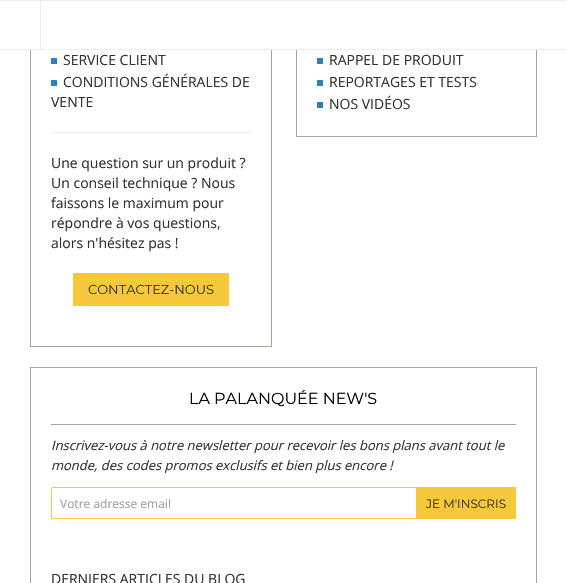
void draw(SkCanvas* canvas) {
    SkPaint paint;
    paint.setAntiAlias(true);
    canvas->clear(0xFFFFFFFF);
    paint.setStyle(SkPaint::kStroke_Style);
    paint.setStrokeWidth(1);
    paint.setColor(0xFFA9A299);
    canvas->drawRect(SkRect::MakeXYWH(30.5f, -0.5f, 241, 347), paint);
    canvas->drawRect(SkRect::MakeXYWH(296.5f, -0.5f, 240, 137), paint);
    paint.setStyle(SkPaint::kFill_Style);
    paint.setColor(0xFFFFFFFF);
    canvas->drawRect(SkRect::MakeXYWH(30, 1, 507, 48), paint);
    paint.setColor(0xFFEDEDED);
    canvas->drawRect(SkRect::MakeXYWH(0, 0, 567, 1), paint);
    canvas->drawRect(SkRect::MakeXYWH(0, 49, 567, 1), paint);
    canvas->drawRect(SkRect::MakeXYWH(40, 1, 1, 48), paint);
    paint.setColor(0xFF2A80B9);
    canvas->drawRect(SkRect::MakeXYWH(51, 58, 6, 6), paint);
    SkFont font1(fontMgr->matchFamilyStyle("Open Sans", SkFontStyle::Normal()), 14);
    font1.setSubpixel(true);
    paint.setColor(0xFF333333);
    canvas->drawString("SERVICE CLIENT", 63, 65, font1, paint);
    paint.setColor(0xFF2A80B9);
    canvas->drawRect(SkRect::MakeXYWH(51, 80, 6, 6), paint);
    paint.setColor(0xFF333333);
    canvas->drawString("CONDITIONS GÉNÉRALES DE", 63, 87, font1, paint);
    canvas->drawString("VENTE", 51, 107, font1, paint);
    paint.setColor(0xFFEEEEEE);
    canvas->drawRect(SkRect::MakeXYWH(51, 132, 200, 1), paint);
    paint.setColor(0xFF333333);
    canvas->drawString("Une question sur un produit ?", 51, 168, font1, paint);
    canvas->drawString("Un conseil technique ? Nous", 51, 188, font1, paint);
    canvas->drawString("faissons le maximum pour", 51, 208, font1, paint);
    canvas->drawString("répondre à vos questions,", 51, 228, font1, paint);
    canvas->drawString("alors n'hésitez pas !", 51, 248, font1, paint);
    paint.setColor(0xFFF7C83A);
    canvas->drawRect(SkRect::MakeXYWH(73, 273, 156, 33), paint);
    SkFont font2(fontMgr->matchFamilyStyle("Montserrat", SkFontStyle::Normal()), 13);
    font2.setSubpixel(true);
    paint.setColor(0xFF333333);
    canvas->drawString("CONTACTEZ-NOUS", 88, 294, font2, paint);
    paint.setColor(0xFF2A80B9);
    canvas->drawRect(SkRect::MakeXYWH(317, 58, 6, 6), paint);
    paint.setColor(0xFF333333);
    canvas->drawString("RAPPEL DE PRODUIT", 329, 65, font1, paint);
    paint.setColor(0xFF2A80B9);
    canvas->drawRect(SkRect::MakeXYWH(317, 80, 6, 6), paint);
    paint.setColor(0xFF333333);
    canvas->drawString("REPORTAGES ET TESTS", 329, 87, font1, paint);
    paint.setColor(0xFF2A80B9);
    canvas->drawRect(SkRect::MakeXYWH(317, 102, 6, 6), paint);
    paint.setColor(0xFF333333);
    canvas->drawString("NOS VIDÉOS", 329, 109, font1, paint);
    paint.setStyle(SkPaint::kStroke_Style);
    paint.setColor(0xFFA9A299);
    canvas->drawRect(SkRect::MakeXYWH(30.5f, 367.5f, 506, 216), paint);
    paint.setStyle(SkPaint::kFill_Style);
    canvas->drawRect(SkRect::MakeXYWH(51, 424, 465, 1), paint);
    SkFont font3(fontMgr->matchFamilyStyle("Montserrat", SkFontStyle::Normal()), 16);
    font3.setSubpixel(true);
    paint.setColor(0xFF000000);
    canvas->drawString("LA PALANQUÉE NEW'S", 189, 404, font3, paint);
    SkFont font4(fontMgr->matchFamilyStyle("Open Sans", SkFontStyle::Italic()), 13);
    font4.setSubpixel(true);
    paint.setColor(0xFF333333);
    canvas->drawString("Inscrivez-vous à notre newsletter pour recevoir les bons plans avant tout le", 51, 450, font4, paint);
    canvas->drawString("monde, des codes promos exclusifs et bien plus encore !", 51, 470, font4, paint);
    paint.setStyle(SkPaint::kStroke_Style);
    paint.setColor(0xFFF7C83A);
    canvas->drawRoundRect(SkRect::MakeXYWH(51.5f, 487.5f, 464, 31), 1.5f, 1.5f, paint);
    SkFont font5(fontMgr->matchFamilyStyle("Open Sans", SkFontStyle::Normal()), 12);
    font5.setSubpixel(true);
    paint.setStyle(SkPaint::kFill_Style);
    paint.setColor(0xFFA0A0A0);
    canvas->drawString("Votre adresse email", 60, 508, font5, paint);
    paint.setColor(0xFFF7C83A);
    canvas->drawRect(SkRect::MakeXYWH(416, 487, 100, 32), paint);
    SkFont font6(fontMgr->matchFamilyStyle("Montserrat", SkFontStyle::Normal()), 12);
    font6.setSubpixel(true);
    paint.setColor(0xFF333333);
    canvas->drawString("JE M'INSCRIS", 426, 508, font6, paint);
    canvas->drawString("DERNIERS ARTICLES DU BLOG", 51, 584, font1, paint);
}
